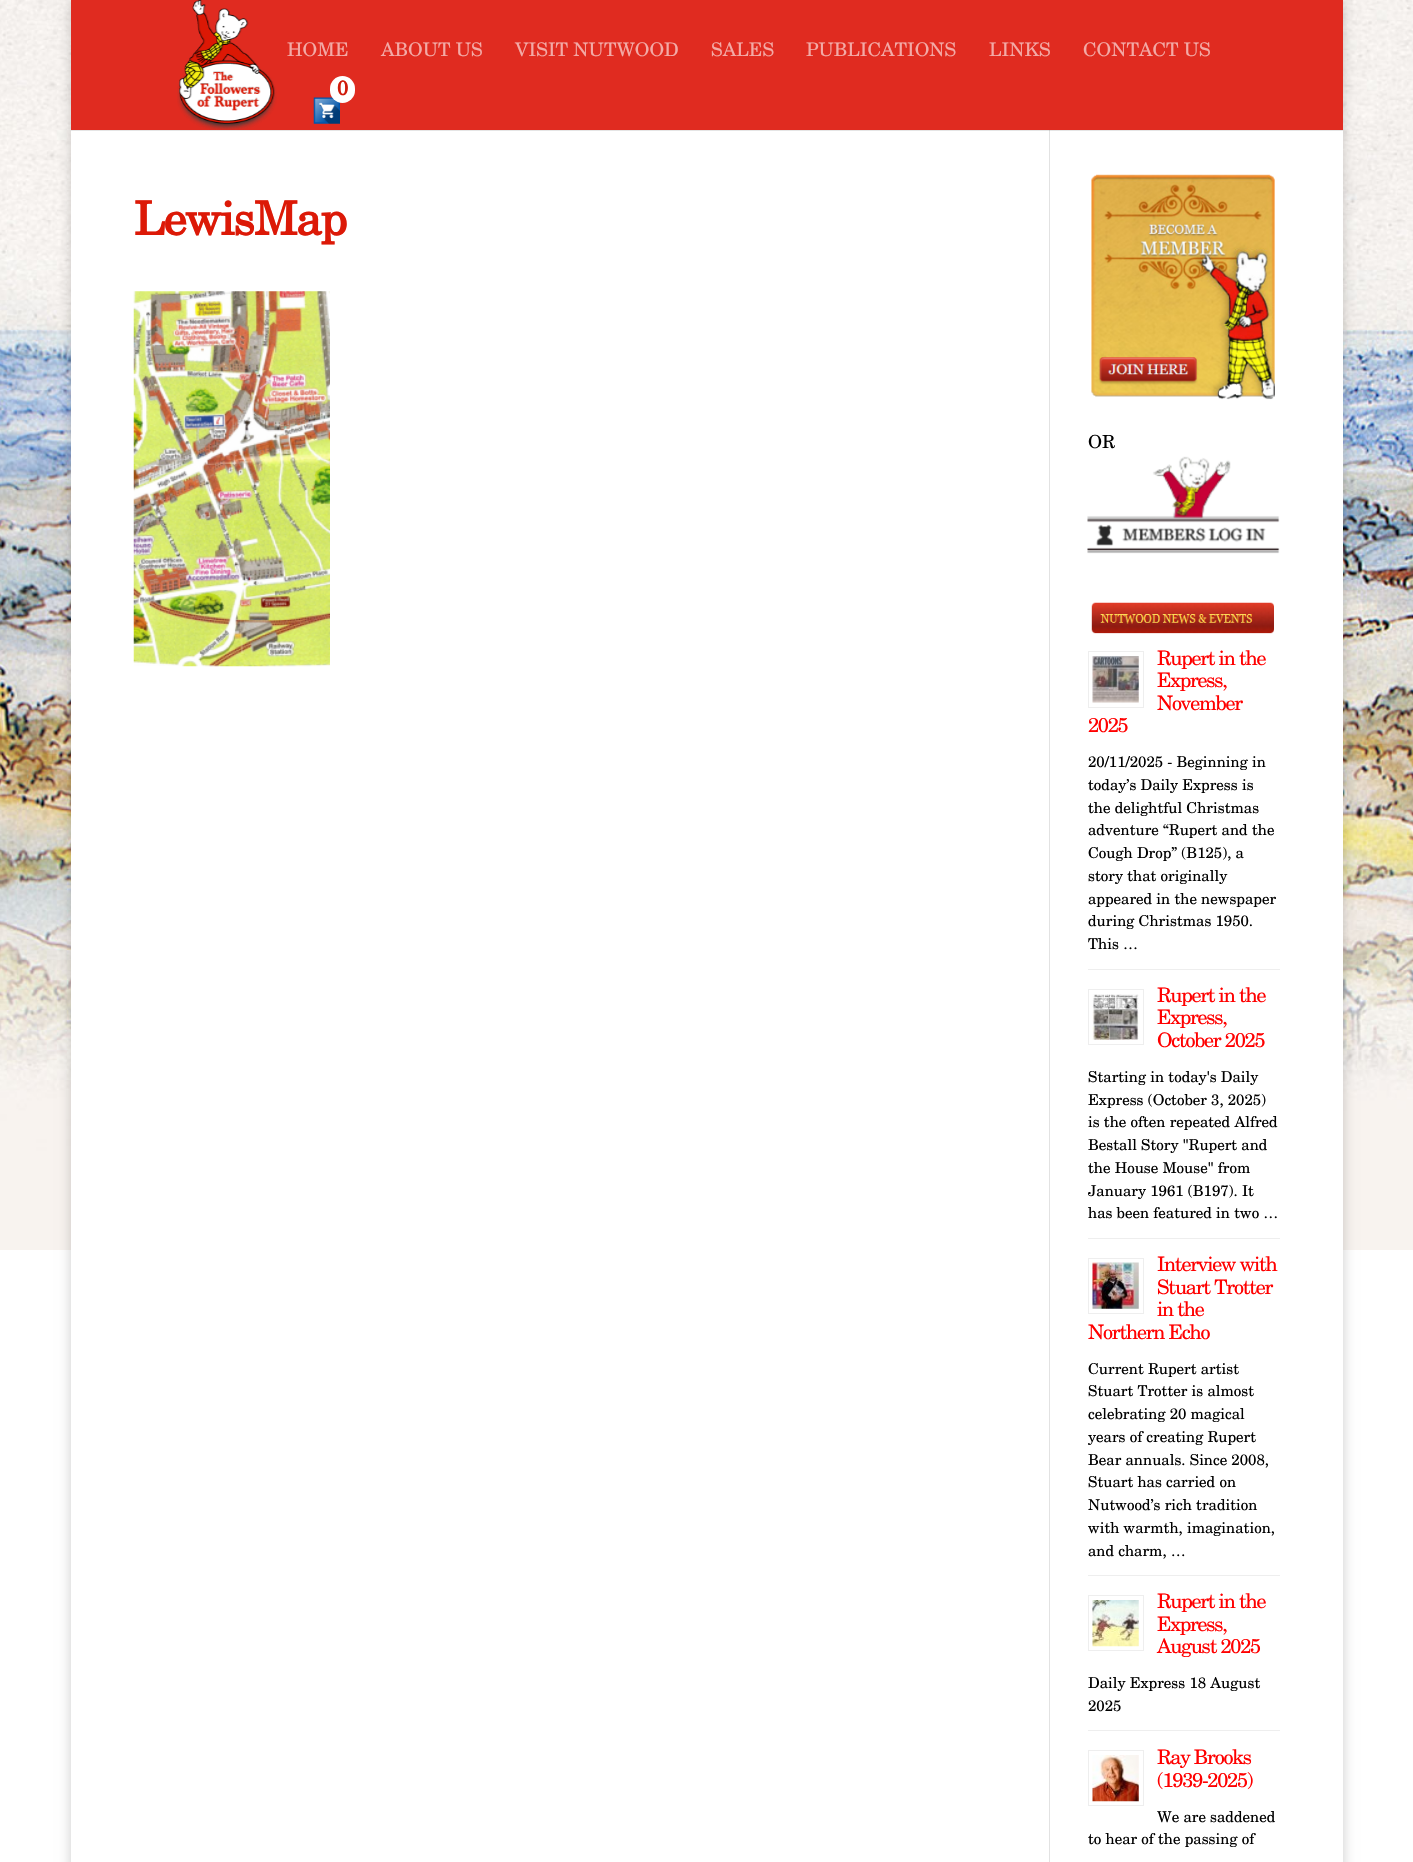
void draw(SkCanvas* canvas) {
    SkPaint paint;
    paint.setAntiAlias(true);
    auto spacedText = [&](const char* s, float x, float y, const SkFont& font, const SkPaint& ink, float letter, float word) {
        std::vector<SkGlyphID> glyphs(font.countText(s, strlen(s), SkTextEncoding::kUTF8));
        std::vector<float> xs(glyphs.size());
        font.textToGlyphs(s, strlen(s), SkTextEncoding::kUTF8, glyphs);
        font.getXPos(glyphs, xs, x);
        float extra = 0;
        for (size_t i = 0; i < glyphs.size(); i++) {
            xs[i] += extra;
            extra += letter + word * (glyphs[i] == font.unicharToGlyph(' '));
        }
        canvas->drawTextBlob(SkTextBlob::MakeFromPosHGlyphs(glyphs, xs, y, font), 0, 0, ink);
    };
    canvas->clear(0xFFFFFFFF);
    canvas->drawImageRect(SkImages::DeferredFromEncodedData(SkData::MakeFromFileName("img1.png")), SkRect::MakeXYWH(0, 0, 1413, 1250), SkSamplingOptions());
    paint.setColor(0x33000000);
    paint.setMaskFilter(SkMaskFilter::MakeBlur(kNormal_SkBlurStyle, 6));
    canvas->drawRect(SkRect::MakeXYWH(71, 0, 1272, 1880), paint);
    paint.setMaskFilter(nullptr);
    paint.setColor(0xFFFFFFFF);
    canvas->drawRect(SkRect::MakeXYWH(71, 130, 1272, 1732), paint);
    paint.setColor(0xFFE2E2E2);
    canvas->drawRect(SkRect::MakeXYWH(1049, 130, 1, 1732), paint);
    paint.setColor(0x1A000000);
    canvas->drawPath(SkPathBuilder().moveTo(71, 1).lineTo(71, 131).lineTo(1343, 131).lineTo(1343, 1).lineTo(1342, 1).lineTo(1342, 130).lineTo(71, 130).close().detach(), paint);
    paint.setColor(0xFFE02B20);
    canvas->drawRect(SkRect::MakeXYWH(71, 0, 1272, 130), paint);
    canvas->drawImageRect(SkImages::DeferredFromEncodedData(SkData::MakeFromFileName("img2.png")), SkRect::MakeXYWH(177, 0, 100, 130), SkSamplingOptions());
    SkFont font1(fontMgr->matchFamilyStyle("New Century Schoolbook", SkFontStyle::Normal()), 18.75f);
    font1.setSubpixel(true);
    paint.setColor(0xFFF3AAA6);
    canvas->drawString("HOME", 287, 56, font1, paint);
    canvas->drawString("ABOUT US", 381, 56, font1, paint);
    canvas->drawString("VISIT NUTWOOD", 515, 56, font1, paint);
    canvas->drawString("SALES", 711, 56, font1, paint);
    canvas->drawString("PUBLICATIONS", 806, 56, font1, paint);
    canvas->drawString("LINKS", 989, 56, font1, paint);
    canvas->drawString("CONTACT US", 1083, 56, font1, paint);
    canvas->drawImageRect(SkImages::DeferredFromEncodedData(SkData::MakeFromFileName("img3.png")), SkRect::MakeXYWH(313, 97, 27, 27), SkSamplingOptions());
    paint.setColor(0xFFFFFFFF);
    canvas->drawRoundRect(SkRect::MakeXYWH(330, 76, 25, 27), 12.5f, 12.5f, paint);
    SkFont font2(fontMgr->matchFamilyStyle("New Century Schoolbook", SkFontStyle::Bold()), 20);
    font2.setSubpixel(true);
    paint.setColor(0xFFD01B0B);
    canvas->drawString("0", 337, 95, font2, paint);
    SkFont font3(fontMgr->matchFamilyStyle("New Century Schoolbook", SkFontStyle::Bold()), 46.25f);
    font3.setSubpixel(true);
    paint.setColor(0xFFDC1907);
    spacedText("LewisMap", 134, 235, font3, paint, -1.25f, 0);
    canvas->drawImageRect(SkImages::DeferredFromEncodedData(SkData::MakeFromFileName("img4.png")), SkRect::MakeXYWH(133, 291, 197, 376), SkSamplingOptions());
    canvas->drawImageRect(SkImages::DeferredFromEncodedData(SkData::MakeFromFileName("img5.png")), SkRect::MakeXYWH(1091, 174, 184, 226), SkSamplingOptions());
    SkFont font4(fontMgr->matchFamilyStyle("New Century Schoolbook", SkFontStyle::Normal()), 18);
    font4.setSubpixel(true);
    paint.setColor(0xFF000000);
    canvas->drawString("OR", 1088, 448, font4, paint);
    canvas->drawImageRect(SkImages::DeferredFromEncodedData(SkData::MakeFromFileName("img6.png")), SkRect::MakeXYWH(1087, 456, 193, 98), SkSamplingOptions());
    canvas->drawImageRect(SkImages::DeferredFromEncodedData(SkData::MakeFromFileName("img7.png")), SkRect::MakeXYWH(1091, 602, 183, 32), SkSamplingOptions());
    paint.setColor(0xFFEEEEEE);
    canvas->drawRect(SkRect::MakeXYWH(1088, 969, 192, 1), paint);
    SkFont font5(fontMgr->matchFamilyStyle("New Century Schoolbook", SkFontStyle::Normal()), 20);
    font5.setSubpixel(true);
    paint.setColor(0xFFFF0000);
    spacedText("Rupert in the", 1157, 665, font5, paint, -1.25f, 0);
    spacedText("Express,", 1157, 687, font5, paint, -1.25f, 0);
    spacedText("November", 1157, 710, font5, paint, -1.25f, 0);
    spacedText("2025", 1088, 732, font5, paint, -1.25f, 0);
    paint.setStyle(SkPaint::kStroke_Style);
    paint.setStrokeWidth(1);
    paint.setColor(0xFFEEEEEE);
    canvas->drawRect(SkRect::MakeXYWH(1088.5f, 651.5f, 55, 56), paint);
    canvas->drawImageRect(SkImages::DeferredFromEncodedData(SkData::MakeFromFileName("img8.png")), SkRect::MakeXYWH(1092, 656, 47, 47), SkSamplingOptions());
    SkFont font6(fontMgr->matchFamilyStyle("New Century Schoolbook", SkFontStyle::Normal()), 15);
    font6.setSubpixel(true);
    paint.setStyle(SkPaint::kFill_Style);
    paint.setColor(0xFF000000);
    canvas->drawString("20/11/2025 - Beginning in", 1088, 767, font6, paint);
    canvas->drawString("today’s Daily Express is", 1088, 790, font6, paint);
    canvas->drawString("the delightful Christmas", 1088, 813, font6, paint);
    canvas->drawString("adventure “Rupert and the", 1088, 835, font6, paint);
    canvas->drawString("Cough Drop” (B125), a", 1088, 858, font6, paint);
    canvas->drawString("story that originally", 1088, 881, font6, paint);
    canvas->drawString("appeared in the newspaper", 1088, 904, font6, paint);
    canvas->drawString("during Christmas 1950.", 1088, 926, font6, paint);
    canvas->drawString("This …", 1088, 949, font6, paint);
    paint.setColor(0xFFEEEEEE);
    canvas->drawRect(SkRect::MakeXYWH(1088, 1238, 192, 1), paint);
    paint.setStyle(SkPaint::kStroke_Style);
    canvas->drawRect(SkRect::MakeXYWH(1088.5f, 989.5f, 55, 55), paint);
    canvas->drawImageRect(SkImages::DeferredFromEncodedData(SkData::MakeFromFileName("img9.png")), SkRect::MakeXYWH(1092, 994, 47, 46), SkSamplingOptions());
    paint.setStyle(SkPaint::kFill_Style);
    paint.setColor(0xFFFF0000);
    spacedText("Rupert in the", 1157, 1002, font5, paint, -1.25f, 0);
    spacedText("Express,", 1157, 1024, font5, paint, -1.25f, 0);
    spacedText("October 2025", 1157, 1047, font5, paint, -1.25f, 0);
    paint.setColor(0xFF000000);
    canvas->drawString("Starting in today's Daily", 1088, 1082, font6, paint);
    canvas->drawString("Express (October 3, 2025)", 1088, 1105, font6, paint);
    canvas->drawString("is the often repeated Alfred", 1088, 1127, font6, paint);
    canvas->drawString("Bestall Story \"Rupert and", 1088, 1150, font6, paint);
    canvas->drawString("the House Mouse\" from", 1088, 1173, font6, paint);
    canvas->drawString("January 1961 (B197). It", 1088, 1196, font6, paint);
    canvas->drawString("has been featured in two …", 1088, 1218, font6, paint);
    paint.setColor(0xFFEEEEEE);
    canvas->drawRect(SkRect::MakeXYWH(1088, 1575, 192, 1), paint);
    paint.setColor(0xFFFF0000);
    spacedText("Interview with", 1157, 1271, font5, paint, -1.25f, 0);
    spacedText("Stuart Trotter", 1157, 1294, font5, paint, -1.25f, 0);
    spacedText("in the", 1157, 1316, font5, paint, -1.25f, 0);
    spacedText("Northern Echo", 1088, 1339, font5, paint, -1.25f, 0);
    paint.setStyle(SkPaint::kStroke_Style);
    paint.setColor(0xFFEEEEEE);
    canvas->drawRect(SkRect::MakeXYWH(1088.5f, 1258.5f, 55, 55), paint);
    canvas->drawImageRect(SkImages::DeferredFromEncodedData(SkData::MakeFromFileName("img10.png")), SkRect::MakeXYWH(1092, 1262, 47, 47), SkSamplingOptions());
    paint.setStyle(SkPaint::kFill_Style);
    paint.setColor(0xFF000000);
    canvas->drawString("Current Rupert artist", 1088, 1374, font6, paint);
    canvas->drawString("Stuart Trotter is almost", 1088, 1396, font6, paint);
    canvas->drawString("celebrating 20 magical", 1088, 1419, font6, paint);
    canvas->drawString("years of creating Rupert", 1088, 1442, font6, paint);
    canvas->drawString("Bear annuals. Since 2008,", 1088, 1465, font6, paint);
    canvas->drawString("Stuart has carried on", 1088, 1487, font6, paint);
    canvas->drawString("Nutwood’s rich tradition", 1088, 1510, font6, paint);
    canvas->drawString("with warmth, imagination,", 1088, 1533, font6, paint);
    canvas->drawString("and charm, …", 1088, 1556, font6, paint);
    paint.setColor(0xFFEEEEEE);
    canvas->drawRect(SkRect::MakeXYWH(1088, 1730, 192, 1), paint);
    paint.setStyle(SkPaint::kStroke_Style);
    canvas->drawRect(SkRect::MakeXYWH(1088.5f, 1595.5f, 55, 55), paint);
    canvas->drawImageRect(SkImages::DeferredFromEncodedData(SkData::MakeFromFileName("img11.png")), SkRect::MakeXYWH(1092, 1600, 47, 47), SkSamplingOptions());
    paint.setStyle(SkPaint::kFill_Style);
    paint.setColor(0xFFFF0000);
    spacedText("Rupert in the", 1157, 1608, font5, paint, -1.25f, 0);
    spacedText("Express,", 1157, 1631, font5, paint, -1.25f, 0);
    spacedText("August 2025", 1157, 1653, font5, paint, -1.25f, 0);
    paint.setColor(0xFF000000);
    canvas->drawString("Daily Express 18 August", 1088, 1688, font6, paint);
    canvas->drawString("2025", 1088, 1711, font6, paint);
    paint.setStyle(SkPaint::kStroke_Style);
    paint.setColor(0xFFEEEEEE);
    canvas->drawRect(SkRect::MakeXYWH(1088.5f, 1750.5f, 55, 55), paint);
    canvas->drawImageRect(SkImages::DeferredFromEncodedData(SkData::MakeFromFileName("img12.png")), SkRect::MakeXYWH(1092, 1755, 47, 47), SkSamplingOptions());
    paint.setStyle(SkPaint::kFill_Style);
    paint.setColor(0xFFFF0000);
    spacedText("Ray Brooks", 1157, 1764, font5, paint, -1.25f, 0);
    spacedText("(1939-2025)", 1157, 1787, font5, paint, -1.25f, 0);
    paint.setColor(0xFF000000);
    canvas->drawString("We are saddened", 1157, 1822, font6, paint);
    canvas->drawString("to hear of the passing of", 1088, 1844, font6, paint);
}
